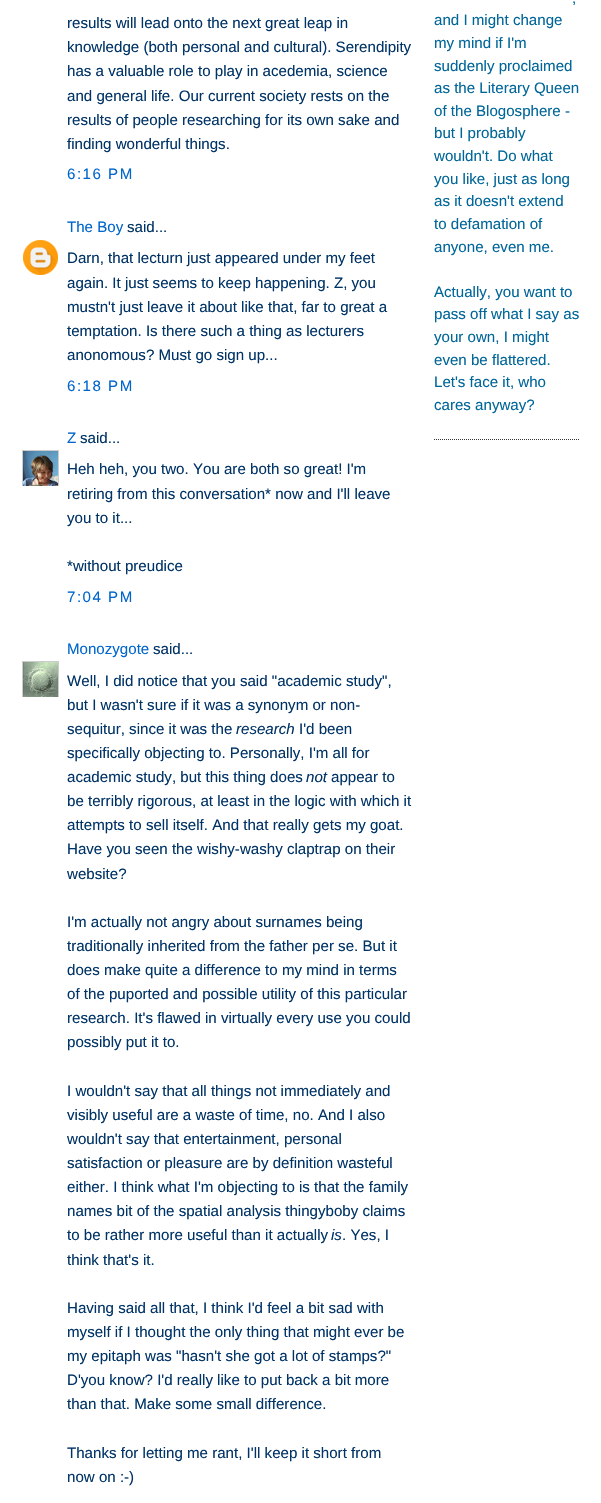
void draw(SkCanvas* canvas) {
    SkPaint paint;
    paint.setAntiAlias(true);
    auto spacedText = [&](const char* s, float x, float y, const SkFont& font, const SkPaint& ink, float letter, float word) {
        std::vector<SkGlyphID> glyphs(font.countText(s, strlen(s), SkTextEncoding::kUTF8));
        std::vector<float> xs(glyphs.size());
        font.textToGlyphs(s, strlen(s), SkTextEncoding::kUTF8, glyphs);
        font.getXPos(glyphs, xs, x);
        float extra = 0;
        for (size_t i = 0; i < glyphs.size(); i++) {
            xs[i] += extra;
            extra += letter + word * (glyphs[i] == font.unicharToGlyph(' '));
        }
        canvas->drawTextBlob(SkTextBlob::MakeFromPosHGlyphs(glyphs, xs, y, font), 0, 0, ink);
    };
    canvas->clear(0xFFFFFFFF);
    SkFont font1(fontMgr->matchFamilyStyle("Liberation Sans", SkFontStyle::Normal()), 15.1f);
    font1.setSubpixel(true);
    paint.setColor(0xFF003366);
    canvas->drawString("results will lead onto the next great leap in", 67, 28, font1, paint);
    canvas->drawString("knowledge (both personal and cultural). Serendipity", 67, 52, font1, paint);
    canvas->drawString("has a valuable role to play in acedemia, science", 67, 76, font1, paint);
    canvas->drawString("and general life. Our current society rests on the", 67, 101, font1, paint);
    canvas->drawString("results of people researching for its own sake and", 67, 125, font1, paint);
    canvas->drawString("finding wonderful things.", 67, 149, font1, paint);
    paint.setColor(0xFF0066CC);
    spacedText("6:16 PM", 67, 179, font1, paint, 1.5f, 0);
    canvas->drawString("The Boy", 67, 232, font1, paint);
    paint.setColor(0xFF003366);
    canvas->drawString("said...", 127, 232, font1, paint);
    canvas->drawImageRect(SkImages::DeferredFromEncodedData(SkData::MakeFromFileName("img1.png")), SkRect::MakeXYWH(23, 240, 35, 35), SkSamplingOptions());
    canvas->drawString("Darn, that lecturn just appeared under my feet", 67, 263, font1, paint);
    canvas->drawString("again. It just seems to keep happening. Z, you", 67, 288, font1, paint);
    canvas->drawString("mustn't just leave it about like that, far to great a", 67, 312, font1, paint);
    canvas->drawString("temptation. Is there such a thing as lecturers", 67, 336, font1, paint);
    canvas->drawString("anonomous? Must go sign up...", 67, 360, font1, paint);
    paint.setColor(0xFF0066CC);
    spacedText("6:18 PM", 67, 391, font1, paint, 1.5f, 0);
    canvas->drawString("Z", 67, 443, font1, paint);
    paint.setColor(0xFF003366);
    canvas->drawString("said...", 80, 443, font1, paint);
    canvas->save();
    canvas->clipRect(SkRect::MakeXYWH(22, 450, 37, 36));
    paint.setStyle(SkPaint::kStroke_Style);
    paint.setStrokeWidth(1);
    paint.setColor(0xFFCCCCCC);
    canvas->drawRect(SkRect::MakeXYWH(22.5f, 450.5f, 36, 36), paint);
    canvas->restore();
    canvas->drawImageRect(SkImages::DeferredFromEncodedData(SkData::MakeFromFileName("img2.png")), SkRect::MakeXYWH(23, 451, 35, 35), SkSamplingOptions());
    paint.setStyle(SkPaint::kFill_Style);
    paint.setColor(0xFF003366);
    canvas->drawString("Heh heh, you two. You are both so great! I'm", 67, 474, font1, paint);
    canvas->drawString("retiring from this conversation* now and I'll leave", 67, 499, font1, paint);
    canvas->drawString("you to it...", 67, 523, font1, paint);
    canvas->drawString("*without preudice", 67, 571, font1, paint);
    paint.setColor(0xFF0066CC);
    spacedText("7:04 PM", 67, 602, font1, paint, 1.5f, 0);
    canvas->drawString("Monozygote", 67, 654, font1, paint);
    paint.setColor(0xFF003366);
    canvas->drawString("said...", 153, 654, font1, paint);
    canvas->save();
    canvas->clipRect(SkRect::MakeXYWH(22, 661, 37, 36));
    paint.setStyle(SkPaint::kStroke_Style);
    paint.setColor(0xFFCCCCCC);
    canvas->drawRect(SkRect::MakeXYWH(22.5f, 661.5f, 36, 36), paint);
    canvas->restore();
    canvas->drawImageRect(SkImages::DeferredFromEncodedData(SkData::MakeFromFileName("img3.png")), SkRect::MakeXYWH(23, 662, 35, 35), SkSamplingOptions());
    paint.setStyle(SkPaint::kFill_Style);
    paint.setColor(0xFF003366);
    canvas->drawString("Well, I did notice that you said \"academic study\",", 67, 686, font1, paint);
    canvas->drawString("but I wasn't sure if it was a synonym or non-", 67, 710, font1, paint);
    canvas->drawString("sequitur, since it was the", 67, 734, font1, paint);
    SkFont font2(fontMgr->matchFamilyStyle("Liberation Sans", SkFontStyle::Italic()), 15.1f);
    font2.setSubpixel(true);
    canvas->drawString("research", 236, 734, font2, paint);
    canvas->drawString("I'd been", 299, 734, font1, paint);
    canvas->drawString("specifically objecting to. Personally, I'm all for", 67, 758, font1, paint);
    canvas->drawString("academic study, but this thing does", 67, 782, font1, paint);
    canvas->drawString("not", 306, 782, font2, paint);
    canvas->drawString("appear to", 331, 782, font1, paint);
    canvas->drawString("be terribly rigorous, at least in the logic with which it", 67, 806, font1, paint);
    canvas->drawString("attempts to sell itself. And that really gets my goat.", 67, 830, font1, paint);
    canvas->drawString("Have you seen the wishy-washy claptrap on their", 67, 854, font1, paint);
    canvas->drawString("website?", 67, 879, font1, paint);
    canvas->drawString("I'm actually not angry about surnames being", 67, 927, font1, paint);
    canvas->drawString("traditionally inherited from the father per se. But it", 67, 951, font1, paint);
    canvas->drawString("does make quite a difference to my mind in terms", 67, 975, font1, paint);
    canvas->drawString("of the puported and possible utility of this particular", 67, 999, font1, paint);
    canvas->drawString("research. It's flawed in virtually every use you could", 67, 1023, font1, paint);
    canvas->drawString("possibly put it to.", 67, 1047, font1, paint);
    canvas->drawString("I wouldn't say that all things not immediately and", 67, 1096, font1, paint);
    canvas->drawString("visibly useful are a waste of time, no. And I also", 67, 1120, font1, paint);
    canvas->drawString("wouldn't say that entertainment, personal", 67, 1144, font1, paint);
    canvas->drawString("satisfaction or pleasure are by definition wasteful", 67, 1168, font1, paint);
    canvas->drawString("either. I think what I'm objecting to is that the family", 67, 1192, font1, paint);
    canvas->drawString("names bit of the spatial analysis thingyboby claims", 67, 1216, font1, paint);
    canvas->drawString("to be rather more useful than it actually", 67, 1240, font1, paint);
    canvas->drawString("is", 331, 1240, font2, paint);
    canvas->drawString(". Yes, I", 342, 1240, font1, paint);
    canvas->drawString("think that's it.", 67, 1265, font1, paint);
    canvas->drawString("Having said all that, I think I'd feel a bit sad with", 67, 1313, font1, paint);
    canvas->drawString("myself if I thought the only thing that might ever be", 67, 1337, font1, paint);
    canvas->drawString("my epitaph was \"hasn't she got a lot of stamps?\"", 67, 1361, font1, paint);
    canvas->drawString("D'you know? I'd really like to put back a bit more", 67, 1385, font1, paint);
    canvas->drawString("than that. Make some small difference.", 67, 1409, font1, paint);
    canvas->drawString("Thanks for letting me rant, I'll keep it short from", 67, 1458, font1, paint);
    canvas->drawString("now on :-)", 67, 1482, font1, paint);
    paint.setStyle(SkPaint::kStroke_Style);
    paint.setColor(0xFF333333);
    paint.setPathEffect(SkDashPathEffect::Make({{1, 1}}, 0));
    canvas->drawPath(SkPathBuilder().moveTo(434, 439.5f).lineTo(579, 439.5f).detach(), paint);
    paint.setPathEffect(nullptr);
    paint.setStyle(SkPaint::kFill_Style);
    paint.setColor(0xFF006699);
    canvas->drawString(",", 572, 3, font1, paint);
    canvas->drawString("and I might change", 434, 25, font1, paint);
    canvas->drawString("my mind if I'm", 434, 48, font1, paint);
    canvas->drawString("suddenly proclaimed", 434, 71, font1, paint);
    canvas->drawString("as the Literary Queen", 434, 93, font1, paint);
    canvas->drawString("of the Blogosphere -", 434, 116, font1, paint);
    canvas->drawString("but I probably", 434, 138, font1, paint);
    canvas->drawString("wouldn't. Do what", 434, 161, font1, paint);
    canvas->drawString("you like, just as long", 434, 184, font1, paint);
    canvas->drawString("as it doesn't extend", 434, 206, font1, paint);
    canvas->drawString("to defamation of", 434, 229, font1, paint);
    canvas->drawString("anyone, even me.", 434, 252, font1, paint);
    canvas->drawString("Actually, you want to", 434, 297, font1, paint);
    canvas->drawString("pass off what I say as", 434, 319, font1, paint);
    canvas->drawString("your own, I might", 434, 342, font1, paint);
    canvas->drawString("even be flattered.", 434, 365, font1, paint);
    canvas->drawString("Let's face it, who", 434, 387, font1, paint);
    canvas->drawString("cares anyway?", 434, 410, font1, paint);
}
